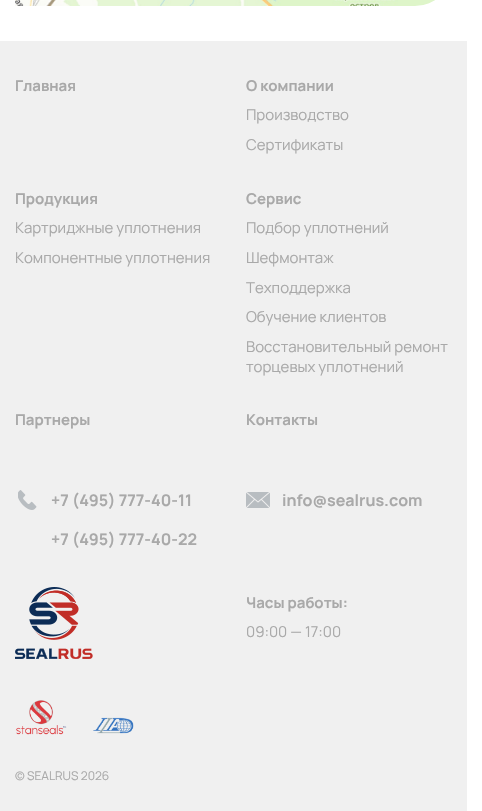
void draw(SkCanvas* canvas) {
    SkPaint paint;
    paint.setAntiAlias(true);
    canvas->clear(0xFFFFFFFF);
    canvas->drawImageRect(SkImages::DeferredFromEncodedData(SkData::MakeFromFileName("img1.png")), SkRect::MakeXYWH(15, 0, 420, 6), SkSamplingOptions());
    paint.setColor(0xFFF0F0F0);
    canvas->drawRect(SkRect::MakeXYWH(0, 41, 467, 770), paint);
    SkFont font1(fontMgr->matchFamilyStyle("Manrope", SkFontStyle::Bold()), 15);
    font1.setSubpixel(true);
    paint.setColor(0xFFA9A9A9);
    canvas->drawString("Главная", 15, 91, font1, paint);
    canvas->drawString("О компании", 246, 91, font1, paint);
    SkFont font2(fontMgr->matchFamilyStyle("Manrope", SkFontStyle::Normal()), 15);
    font2.setSubpixel(true);
    canvas->drawString("Производство", 246, 120, font2, paint);
    canvas->drawString("Сертификаты", 246, 150, font2, paint);
    canvas->drawString("Продукция", 15, 204, font1, paint);
    canvas->drawString("Картриджные уплотнения", 15, 233, font2, paint);
    canvas->drawString("Компонентные уплотнения", 15, 263, font2, paint);
    canvas->drawString("Сервис", 246, 204, font1, paint);
    canvas->drawString("Подбор уплотнений", 246, 233, font2, paint);
    canvas->drawString("Шефмонтаж", 246, 263, font2, paint);
    canvas->drawString("Техподдержка", 246, 293, font2, paint);
    canvas->drawString("Обучение клиентов", 246, 322, font2, paint);
    canvas->drawString("Восстановительный ремонт", 246, 352, font2, paint);
    canvas->drawString("торцевых уплотнений", 246, 372, font2, paint);
    canvas->drawString("Партнеры", 15, 425, font1, paint);
    canvas->drawString("Контакты", 246, 425, font1, paint);
    canvas->drawImageRect(SkImages::DeferredFromEncodedData(SkData::MakeFromFileName("img2.png")), SkRect::MakeXYWH(18, 490, 19, 20), SkSamplingOptions());
    SkFont font3(fontMgr->matchFamilyStyle("Manrope", SkFontStyle::Bold()), 16);
    font3.setSubpixel(true);
    canvas->drawString("+7 (495) 777-40-11", 51, 506, font3, paint);
    canvas->drawString("+7 (495) 777-40-22", 51, 545, font3, paint);
    canvas->drawImageRect(SkImages::DeferredFromEncodedData(SkData::MakeFromFileName("img3.png")), SkRect::MakeXYWH(246, 492, 24, 16), SkSamplingOptions());
    canvas->drawString("info@sealrus.com", 282, 506, font3, paint);
    canvas->drawImageRect(SkImages::DeferredFromEncodedData(SkData::MakeFromFileName("img4.png")), SkRect::MakeXYWH(15, 587, 78, 72), SkSamplingOptions());
    canvas->drawString("Часы работы:", 246, 608, font1, paint);
    canvas->drawString("09:00 — 17:00", 246, 637, font2, paint);
    canvas->drawImageRect(SkImages::DeferredFromEncodedData(SkData::MakeFromFileName("img5.png")), SkRect::MakeXYWH(16, 700, 51, 35), SkSamplingOptions());
    canvas->drawImageRect(SkImages::DeferredFromEncodedData(SkData::MakeFromFileName("img6.png")), SkRect::MakeXYWH(93, 717, 41, 17), SkSamplingOptions());
    SkFont font4(fontMgr->matchFamilyStyle("Manrope", SkFontStyle::Normal()), 12);
    font4.setSubpixel(true);
    canvas->drawString("© SEALRUS 2026", 15, 780, font4, paint);
}
